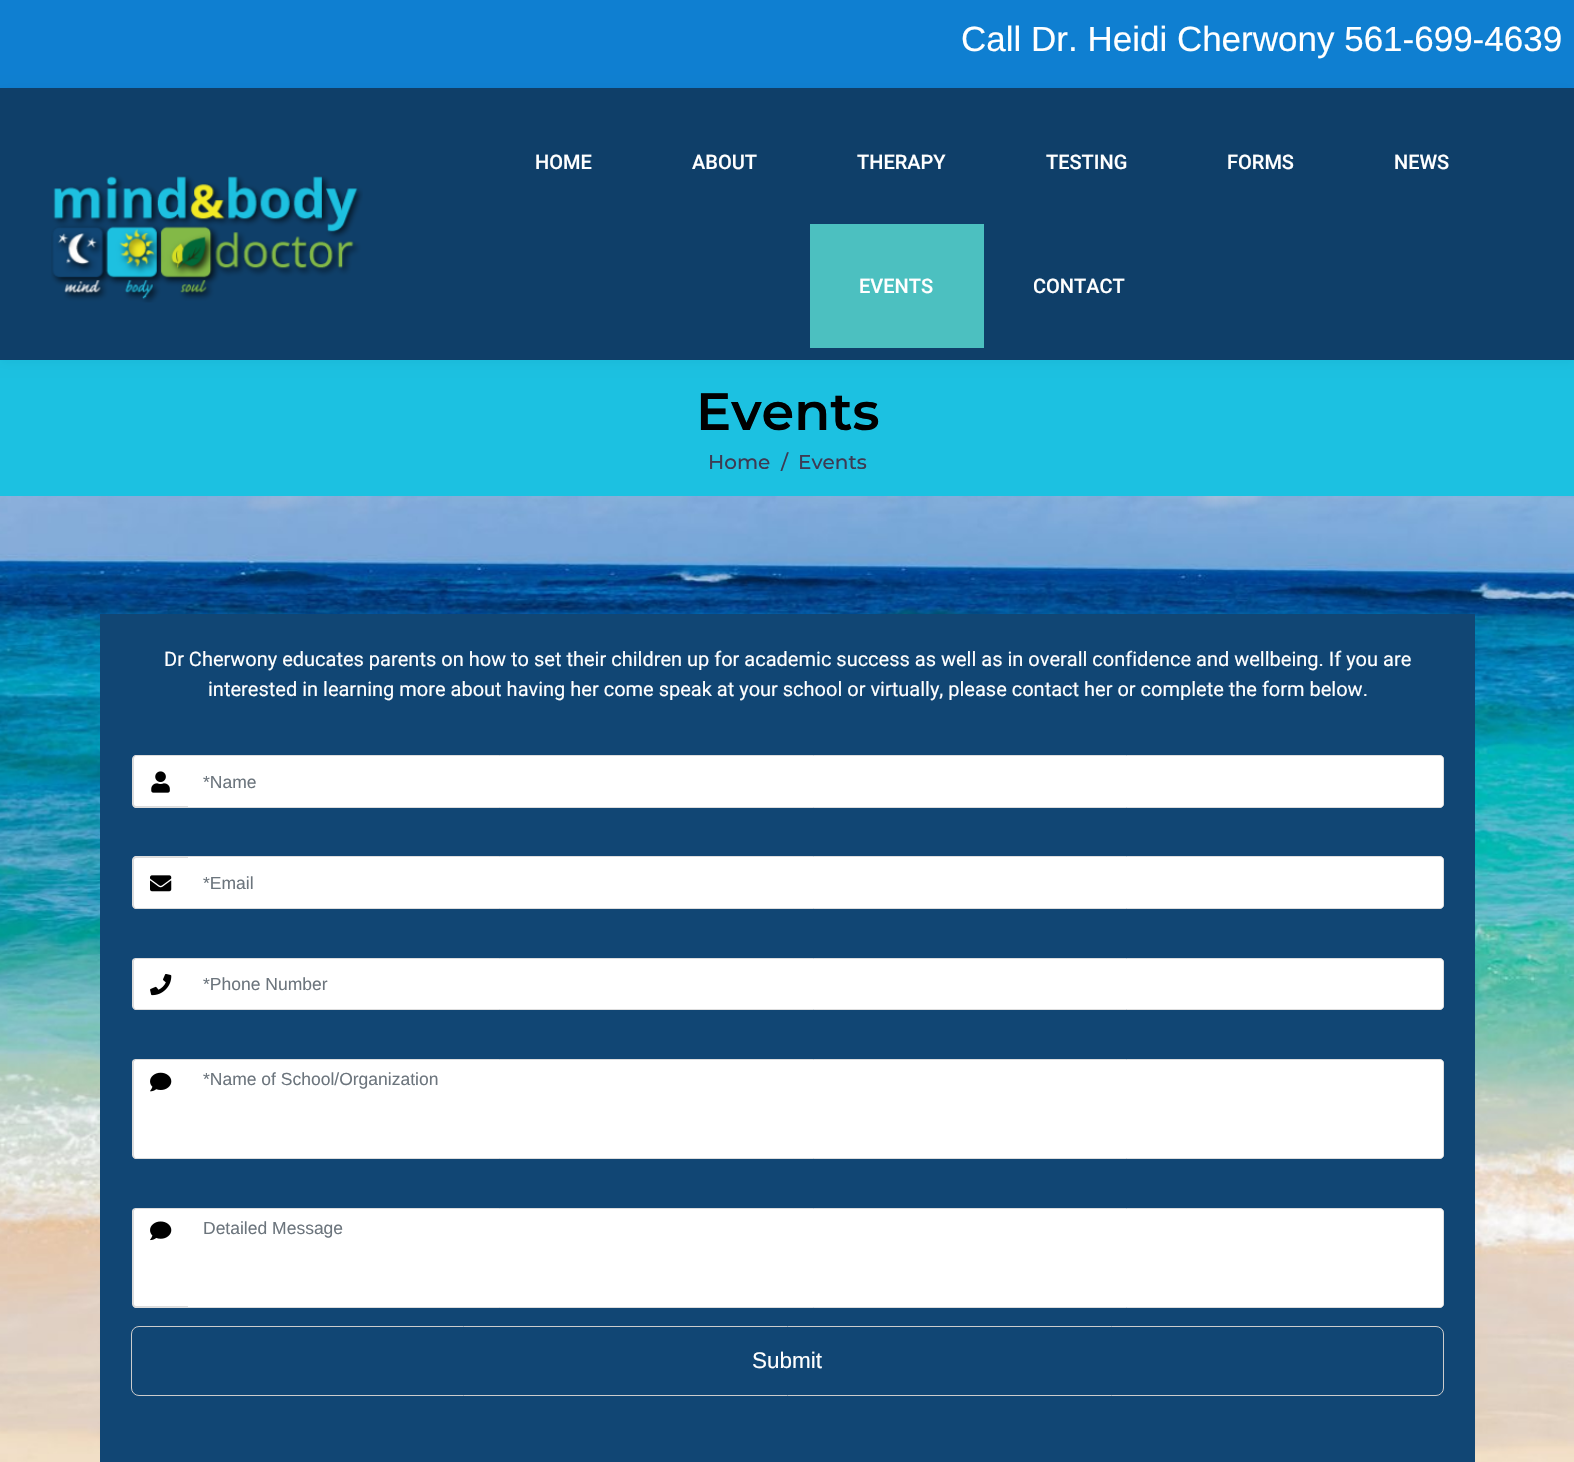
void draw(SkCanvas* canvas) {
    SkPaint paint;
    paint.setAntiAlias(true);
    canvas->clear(0xFFFFFFFF);
    paint.setColor(0xFF0F7FD1);
    canvas->drawRect(SkRect::MakeXYWH(0, 0, 1574, 88), paint);
    SkFont font1(fontMgr->matchFamilyStyle("Liberation Sans", SkFontStyle::Normal()), 35);
    font1.setSubpixel(true);
    paint.setColor(0xFFFFFFFF);
    canvas->drawString("Call Dr. Heidi Cherwony 561-699-4639", 961, 51, font1, paint);
    paint.setColor(0xFF1CC1E1);
    canvas->drawRect(SkRect::MakeXYWH(0, 360, 1574, 136), paint);
    paint.setColor(0x0A000000);
    paint.setMaskFilter(SkMaskFilter::MakeBlur(kNormal_SkBlurStyle, 5));
    canvas->drawRect(SkRect::MakeXYWH(0, 90, 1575, 273), paint);
    paint.setMaskFilter(nullptr);
    paint.setColor(0xFF0F3F69);
    canvas->drawRect(SkRect::MakeXYWH(0, 88, 1574, 272), paint);
    canvas->drawImageRect(SkImages::DeferredFromEncodedData(SkData::MakeFromFileName("img1.png")), SkRect::MakeXYWH(51, 175, 312, 128), SkSamplingOptions());
    SkFont font2(fontMgr->matchFamilyStyle("Roboto", SkFontStyle(500, SkFontStyle::kNormal_Width, SkFontStyle::kUpright_Slant)), 20);
    font2.setSubpixel(true);
    paint.setColor(0xFFFFFFFF);
    canvas->drawString("HOME", 535, 169, font2, paint);
    canvas->drawString("ABOUT", 692, 169, font2, paint);
    canvas->drawString("THERAPY", 857, 169, font2, paint);
    canvas->drawString("TESTING", 1046, 169, font2, paint);
    canvas->drawString("FORMS", 1227, 169, font2, paint);
    canvas->drawString("NEWS", 1394, 169, font2, paint);
    paint.setColor(0xFF4CC0C0);
    canvas->drawRect(SkRect::MakeXYWH(810, 224, 174, 124), paint);
    paint.setColor(0xFFFFFFFF);
    canvas->drawString("EVENTS", 859, 293, font2, paint);
    canvas->drawString("CONTACT", 1033, 293, font2, paint);
    canvas->drawImageRect(SkImages::DeferredFromEncodedData(SkData::MakeFromFileName("img2.png")), SkRect::MakeXYWH(0, 496, 1574, 966), SkSamplingOptions());
    SkFont font3(fontMgr->matchFamilyStyle("Montserrat", SkFontStyle(600, SkFontStyle::kNormal_Width, SkFontStyle::kUpright_Slant)), 52.5f);
    font3.setSubpixel(true);
    paint.setColor(0xFF000000);
    canvas->drawString("Events", 696, 430, font3, paint);
    SkFont font4(fontMgr->matchFamilyStyle("Montserrat", SkFontStyle(500, SkFontStyle::kNormal_Width, SkFontStyle::kUpright_Slant)), 20);
    font4.setSubpixel(true);
    paint.setColor(0xFF3D3B53);
    canvas->drawString("Home", 708, 469, font4, paint);
    canvas->drawString("/", 781, 469, font4, paint);
    canvas->drawString("Events", 798, 469, font4, paint);
    paint.setColor(0xFF114674);
    canvas->drawRect(SkRect::MakeXYWH(100, 614, 1375, 848), paint);
    SkFont font5(fontMgr->matchFamilyStyle("Roboto", SkFontStyle::Normal()), 20);
    font5.setSubpixel(true);
    paint.setColor(0xFFFFFFFF);
    canvas->drawString("Dr Cherwony educates parents on how to set their children up for academic success as well as in overall confidence and wellbeing. If you are", 164, 666, font5, paint);
    canvas->drawString("interested in learning more about having her come speak at your school or virtually, please contact her or complete the form below.", 208, 696, font5, paint);
    canvas->drawPath(SkPathBuilder().moveTo(186.5f, 755.5f).lineTo(1440, 755.5f).cubicTo(1442, 755.5f, 1443.5f, 757, 1443.5f, 759).lineTo(1443.5f, 804).cubicTo(1443.5f, 806, 1442, 807.5f, 1440, 807.5f).lineTo(186.5f, 807.5f).close().detach(), paint);
    paint.setStyle(SkPaint::kStroke_Style);
    paint.setStrokeWidth(1);
    paint.setColor(0xFFDDDDDD);
    canvas->drawPath(SkPathBuilder().moveTo(186.5f, 755.5f).lineTo(1440, 755.5f).cubicTo(1442, 755.5f, 1443.5f, 757, 1443.5f, 759).lineTo(1443.5f, 804).cubicTo(1443.5f, 806, 1442, 807.5f, 1440, 807.5f).lineTo(186.5f, 807.5f).close().detach(), paint);
    paint.setStyle(SkPaint::kFill_Style);
    paint.setColor(0xFFFFFFFF);
    canvas->drawPath(SkPathBuilder().moveTo(137, 755).lineTo(188, 755).lineTo(188, 808).lineTo(137, 808).cubicTo(135, 808, 133, 806, 133, 804).lineTo(133, 759).cubicTo(133, 757, 135, 755, 137, 755).close().detach(), paint);
    paint.setColor(0xFFDDDDDD);
    canvas->drawPath(SkPathBuilder(SkPathFillType::kEvenOdd).moveTo(136, 755).lineTo(188, 755).lineTo(188, 808).lineTo(136, 808).cubicTo(134, 808, 132, 806, 132, 804).lineTo(132, 759).cubicTo(132, 757, 134, 755, 136, 755).close().moveTo(136, 756).lineTo(188, 756).lineTo(188, 806).lineTo(136, 806).cubicTo(135, 806, 134, 805, 134, 804).lineTo(134, 759).cubicTo(134, 757, 135, 756, 136, 756).close().detach(), paint);
    canvas->drawImageRect(SkImages::DeferredFromEncodedData(SkData::MakeFromFileName("img3.png")), SkRect::MakeXYWH(151, 771, 19, 22), SkSamplingOptions());
    SkFont font6(fontMgr->matchFamilyStyle("Liberation Sans", SkFontStyle::Normal()), 17.5f);
    font6.setSubpixel(true);
    paint.setColor(0xFF6C757D);
    canvas->drawString("*Name", 203, 788, font6, paint);
    paint.setColor(0xFFFFFFFF);
    canvas->drawPath(SkPathBuilder().moveTo(186.5f, 856.5f).lineTo(1440, 856.5f).cubicTo(1442, 856.5f, 1443.5f, 858, 1443.5f, 860).lineTo(1443.5f, 905).cubicTo(1443.5f, 907, 1442, 908.5f, 1440, 908.5f).lineTo(186.5f, 908.5f).close().detach(), paint);
    paint.setStyle(SkPaint::kStroke_Style);
    paint.setColor(0xFFDDDDDD);
    canvas->drawPath(SkPathBuilder().moveTo(186.5f, 856.5f).lineTo(1440, 856.5f).cubicTo(1442, 856.5f, 1443.5f, 858, 1443.5f, 860).lineTo(1443.5f, 905).cubicTo(1443.5f, 907, 1442, 908.5f, 1440, 908.5f).lineTo(186.5f, 908.5f).close().detach(), paint);
    paint.setStyle(SkPaint::kFill_Style);
    paint.setColor(0xFFFFFFFF);
    canvas->drawPath(SkPathBuilder().moveTo(137, 856).lineTo(188, 856).lineTo(188, 909).lineTo(137, 909).cubicTo(135, 909, 133, 907, 133, 905).lineTo(133, 860).cubicTo(133, 858, 135, 856, 137, 856).close().detach(), paint);
    paint.setColor(0xFFDDDDDD);
    canvas->drawPath(SkPathBuilder(SkPathFillType::kEvenOdd).moveTo(136, 856).lineTo(188, 856).lineTo(188, 909).lineTo(136, 909).cubicTo(134, 909, 132, 907, 132, 905).lineTo(132, 860).cubicTo(132, 858, 134, 856, 136, 856).close().moveTo(136, 858).lineTo(188, 858).lineTo(188, 908).lineTo(136, 908).cubicTo(135, 908, 134, 906, 134, 905).lineTo(134, 860).cubicTo(134, 859, 135, 858, 136, 858).close().detach(), paint);
    canvas->drawImageRect(SkImages::DeferredFromEncodedData(SkData::MakeFromFileName("img4.png")), SkRect::MakeXYWH(150, 875, 22, 17), SkSamplingOptions());
    paint.setColor(0xFF6C757D);
    canvas->drawString("*Email", 203, 889, font6, paint);
    paint.setColor(0xFFFFFFFF);
    canvas->drawPath(SkPathBuilder().moveTo(186.5f, 958.5f).lineTo(1440, 958.5f).cubicTo(1442, 958.5f, 1443.5f, 960, 1443.5f, 962).lineTo(1443.5f, 1006).cubicTo(1443.5f, 1008, 1442, 1009.5f, 1440, 1009.5f).lineTo(186.5f, 1009.5f).close().detach(), paint);
    paint.setStyle(SkPaint::kStroke_Style);
    paint.setColor(0xFFDDDDDD);
    canvas->drawPath(SkPathBuilder().moveTo(186.5f, 958.5f).lineTo(1440, 958.5f).cubicTo(1442, 958.5f, 1443.5f, 960, 1443.5f, 962).lineTo(1443.5f, 1006).cubicTo(1443.5f, 1008, 1442, 1009.5f, 1440, 1009.5f).lineTo(186.5f, 1009.5f).close().detach(), paint);
    paint.setStyle(SkPaint::kFill_Style);
    paint.setColor(0xFFFFFFFF);
    canvas->drawPath(SkPathBuilder().moveTo(137, 958).lineTo(188, 958).lineTo(188, 1010).lineTo(137, 1010).cubicTo(135, 1010, 133, 1008, 133, 1006).lineTo(133, 962).cubicTo(133, 960, 135, 958, 137, 958).close().detach(), paint);
    paint.setColor(0xFFDDDDDD);
    canvas->drawPath(SkPathBuilder(SkPathFillType::kEvenOdd).moveTo(136, 958).lineTo(188, 958).lineTo(188, 1010).lineTo(136, 1010).cubicTo(134, 1010, 132, 1008, 132, 1006).lineTo(132, 961).cubicTo(132, 959, 134, 958, 136, 958).close().moveTo(136, 959).lineTo(188, 959).lineTo(188, 1009).lineTo(136, 1009).cubicTo(135, 1009, 134, 1008, 134, 1006).lineTo(134, 961).cubicTo(134, 960, 135, 959, 136, 959).close().detach(), paint);
    canvas->drawImageRect(SkImages::DeferredFromEncodedData(SkData::MakeFromFileName("img5.png")), SkRect::MakeXYWH(150, 974, 22, 22), SkSamplingOptions());
    paint.setColor(0xFF6C757D);
    canvas->drawString("*Phone Number", 203, 990, font6, paint);
    paint.setColor(0xFFFFFFFF);
    canvas->drawPath(SkPathBuilder().moveTo(186.5f, 1059.5f).lineTo(1440, 1059.5f).cubicTo(1442, 1059.5f, 1443.5f, 1061, 1443.5f, 1063).lineTo(1443.5f, 1155).cubicTo(1443.5f, 1157, 1442, 1158.5f, 1440, 1158.5f).lineTo(186.5f, 1158.5f).close().detach(), paint);
    paint.setStyle(SkPaint::kStroke_Style);
    paint.setColor(0xFFDDDDDD);
    canvas->drawPath(SkPathBuilder().moveTo(186.5f, 1059.5f).lineTo(1440, 1059.5f).cubicTo(1442, 1059.5f, 1443.5f, 1061, 1443.5f, 1063).lineTo(1443.5f, 1155).cubicTo(1443.5f, 1157, 1442, 1158.5f, 1440, 1158.5f).lineTo(186.5f, 1158.5f).close().detach(), paint);
    paint.setStyle(SkPaint::kFill_Style);
    paint.setColor(0xFFFFFFFF);
    canvas->drawPath(SkPathBuilder().moveTo(137, 1059).lineTo(188, 1059).lineTo(188, 1159).lineTo(137, 1159).cubicTo(135, 1159, 133, 1157, 133, 1155).lineTo(133, 1063).cubicTo(133, 1061, 135, 1059, 137, 1059).close().detach(), paint);
    paint.setColor(0xFFDDDDDD);
    canvas->drawPath(SkPathBuilder(SkPathFillType::kEvenOdd).moveTo(136, 1059).lineTo(188, 1059).lineTo(188, 1159).lineTo(136, 1159).cubicTo(134, 1159, 132, 1157, 132, 1155).lineTo(132, 1062).cubicTo(132, 1060, 134, 1059, 136, 1059).close().moveTo(136, 1060).lineTo(188, 1060).lineTo(188, 1158).lineTo(136, 1158).cubicTo(135, 1158, 134, 1156, 134, 1155).lineTo(134, 1062).cubicTo(134, 1061, 135, 1060, 136, 1060).close().detach(), paint);
    canvas->drawImageRect(SkImages::DeferredFromEncodedData(SkData::MakeFromFileName("img6.png")), SkRect::MakeXYWH(150, 1072, 22, 20), SkSamplingOptions());
    paint.setColor(0xFF6C757D);
    canvas->drawString("*Name of School/Organization", 203, 1085, font6, paint);
    paint.setColor(0xFFFFFFFF);
    canvas->drawPath(SkPathBuilder().moveTo(186.5f, 1208.5f).lineTo(1440, 1208.5f).cubicTo(1442, 1208.5f, 1443.5f, 1210, 1443.5f, 1212).lineTo(1443.5f, 1304).cubicTo(1443.5f, 1306, 1442, 1307.5f, 1440, 1307.5f).lineTo(186.5f, 1307.5f).close().detach(), paint);
    paint.setStyle(SkPaint::kStroke_Style);
    paint.setColor(0xFFDDDDDD);
    canvas->drawPath(SkPathBuilder().moveTo(186.5f, 1208.5f).lineTo(1440, 1208.5f).cubicTo(1442, 1208.5f, 1443.5f, 1210, 1443.5f, 1212).lineTo(1443.5f, 1304).cubicTo(1443.5f, 1306, 1442, 1307.5f, 1440, 1307.5f).lineTo(186.5f, 1307.5f).close().detach(), paint);
    paint.setStyle(SkPaint::kFill_Style);
    paint.setColor(0xFFFFFFFF);
    canvas->drawPath(SkPathBuilder().moveTo(137, 1208).lineTo(188, 1208).lineTo(188, 1308).lineTo(137, 1308).cubicTo(135, 1308, 133, 1306, 133, 1304).lineTo(133, 1212).cubicTo(133, 1210, 135, 1208, 137, 1208).close().detach(), paint);
    paint.setColor(0xFFDDDDDD);
    canvas->drawPath(SkPathBuilder(SkPathFillType::kEvenOdd).moveTo(136, 1208).lineTo(188, 1208).lineTo(188, 1308).lineTo(136, 1308).cubicTo(134, 1308, 132, 1306, 132, 1304).lineTo(132, 1211).cubicTo(132, 1209, 134, 1208, 136, 1208).close().moveTo(136, 1209).lineTo(188, 1209).lineTo(188, 1306).lineTo(136, 1306).cubicTo(135, 1306, 134, 1305, 134, 1304).lineTo(134, 1211).cubicTo(134, 1210, 135, 1209, 136, 1209).close().detach(), paint);
    canvas->drawImageRect(SkImages::DeferredFromEncodedData(SkData::MakeFromFileName("img7.png")), SkRect::MakeXYWH(150, 1221, 22, 20), SkSamplingOptions());
    paint.setColor(0xFF6C757D);
    canvas->drawString("Detailed Message", 203, 1234, font6, paint);
    paint.setStyle(SkPaint::kStroke_Style);
    paint.setColor(0xFFCCCCCC);
    canvas->drawRoundRect(SkRect::MakeXYWH(131.5f, 1326.5f, 1312, 69), 7.5f, 7.5f, paint);
    SkFont font7(fontMgr->matchFamilyStyle("Liberation Sans", SkFontStyle::Normal()), 22.5f);
    font7.setSubpixel(true);
    paint.setStyle(SkPaint::kFill_Style);
    paint.setColor(0xFFFFFFFF);
    canvas->drawString("Submit", 752, 1368, font7, paint);
}
